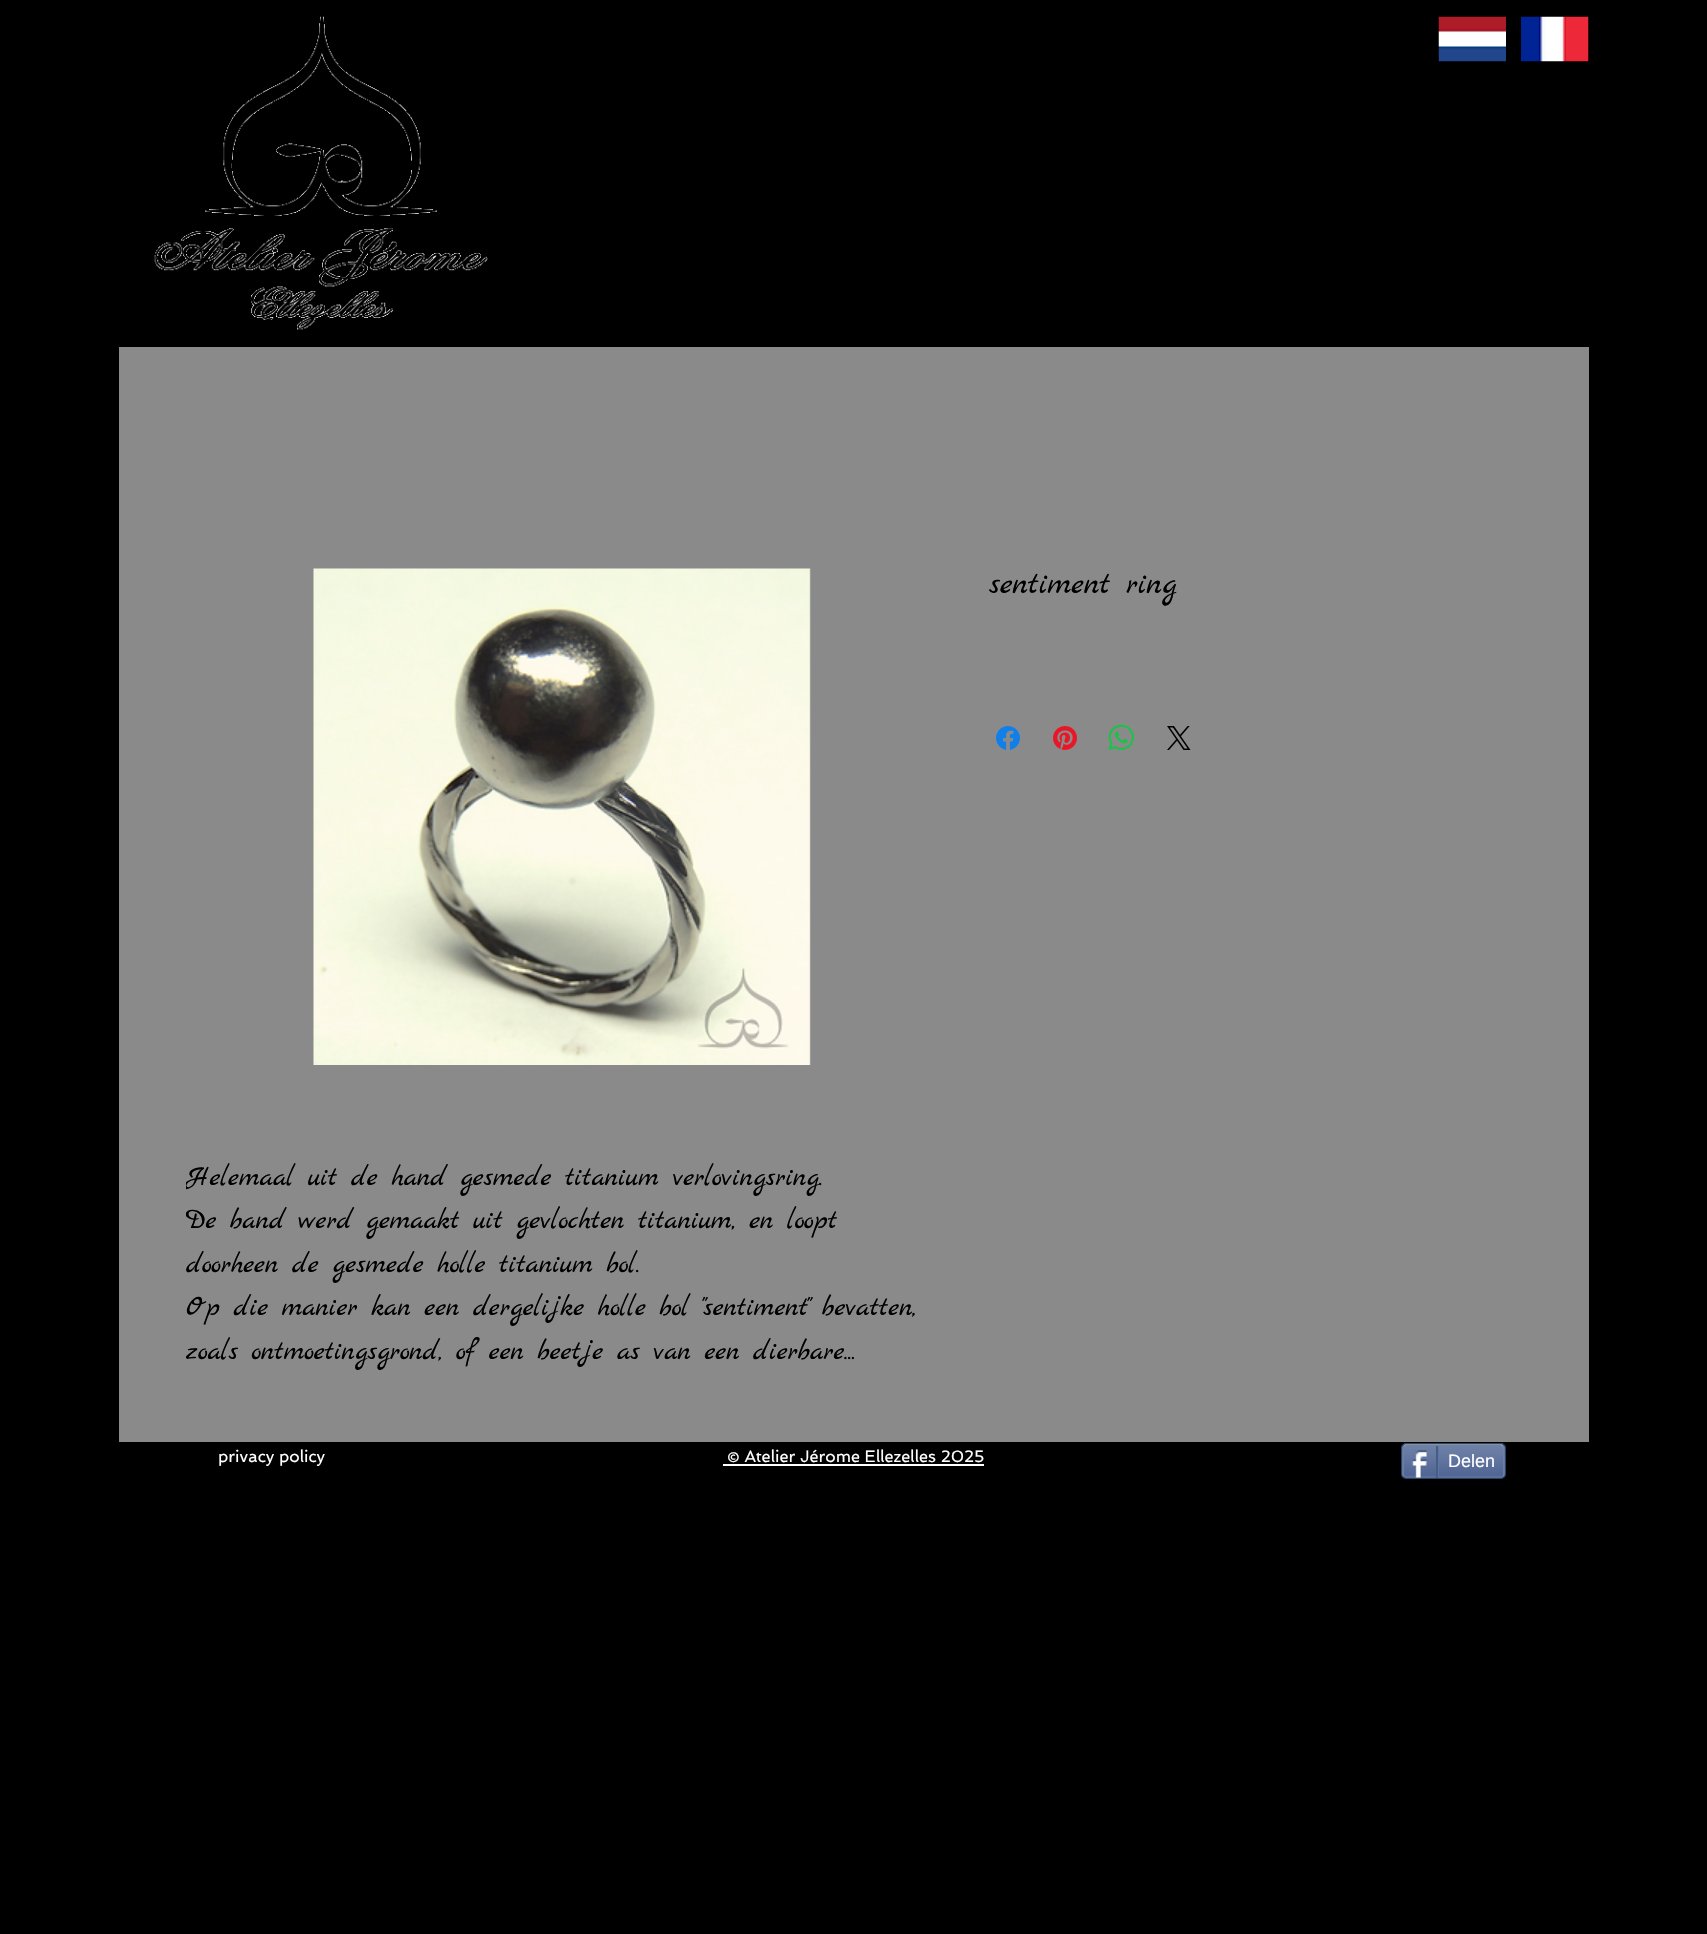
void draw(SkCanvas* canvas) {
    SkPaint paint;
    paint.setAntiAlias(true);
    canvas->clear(0xFF000000);
    canvas->drawImageRect(SkImages::DeferredFromEncodedData(SkData::MakeFromFileName("img1.png")), SkRect::MakeXYWH(154, 16, 334, 314), SkSamplingOptions());
    canvas->drawImageRect(SkImages::DeferredFromEncodedData(SkData::MakeFromFileName("img2.png")), SkRect::MakeXYWH(1438, 16, 68, 46), SkSamplingOptions());
    canvas->drawImageRect(SkImages::DeferredFromEncodedData(SkData::MakeFromFileName("img3.png")), SkRect::MakeXYWH(1521, 16, 68, 46), SkSamplingOptions());
    paint.setColor(0xFF8A8A8A);
    canvas->drawRect(SkRect::MakeXYWH(119, 347, 1470, 1095), paint);
    SkFont font1(fontMgr->matchFamilyStyle("Marck Script", SkFontStyle::Normal()), 33);
    font1.setSubpixel(true);
    paint.setColor(0xFF000000);
    canvas->drawString("sentiment ring", 989, 593, font1, paint);
    canvas->drawImageRect(SkImages::DeferredFromEncodedData(SkData::MakeFromFileName("img4.png")), SkRect::MakeXYWH(996, 726, 24, 24), SkSamplingOptions());
    canvas->drawImageRect(SkImages::DeferredFromEncodedData(SkData::MakeFromFileName("img5.png")), SkRect::MakeXYWH(1053, 726, 24, 24), SkSamplingOptions());
    canvas->drawImageRect(SkImages::DeferredFromEncodedData(SkData::MakeFromFileName("img6.png")), SkRect::MakeXYWH(1108, 724, 26, 27), SkSamplingOptions());
    canvas->drawImageRect(SkImages::DeferredFromEncodedData(SkData::MakeFromFileName("img7.png")), SkRect::MakeXYWH(1167, 726, 24, 24), SkSamplingOptions());
    canvas->drawImageRect(SkImages::DeferredFromEncodedData(SkData::MakeFromFileName("img8.png")), SkRect::MakeXYWH(313, 568, 498, 497), SkSamplingOptions());
    canvas->save();
    canvas->clipRect(SkRect::MakeXYWH(186, 1157, 750, 217));
    SkFont font2(fontMgr->matchFamilyStyle("Marck Script", SkFontStyle::Normal()), 28.5f);
    font2.setSubpixel(true);
    canvas->drawString("Helemaal uit de hand gesmede titanium verlovingsring.", 186, 1185, font2, paint);
    canvas->drawString("De band werd gemaakt uit gevlochten titanium, en loopt", 186, 1228, font2, paint);
    canvas->restore();
    canvas->drawString("doorheen de gesmede holle titanium bol.", 186, 1272, font2, paint);
    canvas->drawString("Op die manier kan een dergelijke holle bol \"sentiment\" bevatten,", 186, 1315, font2, paint);
    canvas->drawString("zoals ontmoetingsgrond, of een beetje as van een dierbare...", 186, 1359, font2, paint);
    SkFont font3(fontMgr->matchFamilyStyle("Spinnaker", SkFontStyle::Normal()), 16.5f);
    font3.setSubpixel(true);
    paint.setColor(0xFFFFFFFF);
    canvas->drawString("privacy policy", 218, 1462, font3, paint);
    canvas->drawString("© Atelier Jérome Ellezelles 2025", 727, 1462, font3, paint);
    canvas->drawRect(SkRect::MakeXYWH(723, 1464, 261, 2), paint);
    paint.setStyle(SkPaint::kStroke_Style);
    paint.setStrokeWidth(2);
    paint.setColor(0xFF2D4565);
    canvas->drawRoundRect(SkRect::MakeXYWH(1402, 1444, 103, 34), 4, 4, paint);
    canvas->drawImageRect(SkImages::DeferredFromEncodedData(SkData::MakeFromFileName("img9.png")), SkRect::MakeXYWH(1402, 1446, 103, 32), SkSamplingOptions());
    paint.setStrokeWidth(1.5f);
    paint.setColor(0xFF9AABC6);
    canvas->drawPath(SkPathBuilder().moveTo(1404, 1446).lineTo(1405.5f, 1445).lineTo(1501.5f, 1445).lineTo(1503, 1446).detach(), paint);
    paint.setColor(0xFF6F83AD);
    canvas->drawPath(SkPathBuilder().moveTo(1503, 1446).cubicTo(1503.5f, 1446.5f, 1504, 1447, 1504, 1447.5f).lineTo(1504, 1474.5f).cubicTo(1504, 1475, 1503.5f, 1475.5f, 1503, 1476).detach(), paint);
    paint.setColor(0xFF6176A3);
    canvas->drawPath(SkPathBuilder().moveTo(1503, 1476).lineTo(1501.5f, 1477).lineTo(1405.5f, 1477).lineTo(1404, 1476).detach(), paint);
    paint.setColor(0xFF6F83AD);
    canvas->drawPath(SkPathBuilder().moveTo(1404, 1476).cubicTo(1403.5f, 1475.5f, 1403, 1475, 1403, 1474.5f).lineTo(1403, 1447.5f).cubicTo(1403, 1447, 1403.5f, 1446.5f, 1404, 1446).detach(), paint);
    canvas->drawImageRect(SkImages::DeferredFromEncodedData(SkData::MakeFromFileName("img10.png")), SkRect::MakeXYWH(1411, 1450, 16, 28), SkSamplingOptions());
    paint.setStyle(SkPaint::kFill_Style);
    paint.setColor(0xFF425E85);
    canvas->drawRect(SkRect::MakeXYWH(1436, 1446, 2, 32), paint);
    SkFont font4(fontMgr->matchFamilyStyle("Liberation Sans", SkFontStyle::Normal()), 18);
    font4.setSubpixel(true);
    paint.setColor(0xFFFFFFFF);
    canvas->drawString("Delen", 1448, 1467, font4, paint);
    paint.setColor(0xFF6176A3);
    canvas->drawRect(SkRect::MakeXYWH(1438, 1446, 1, 30), paint);
}
